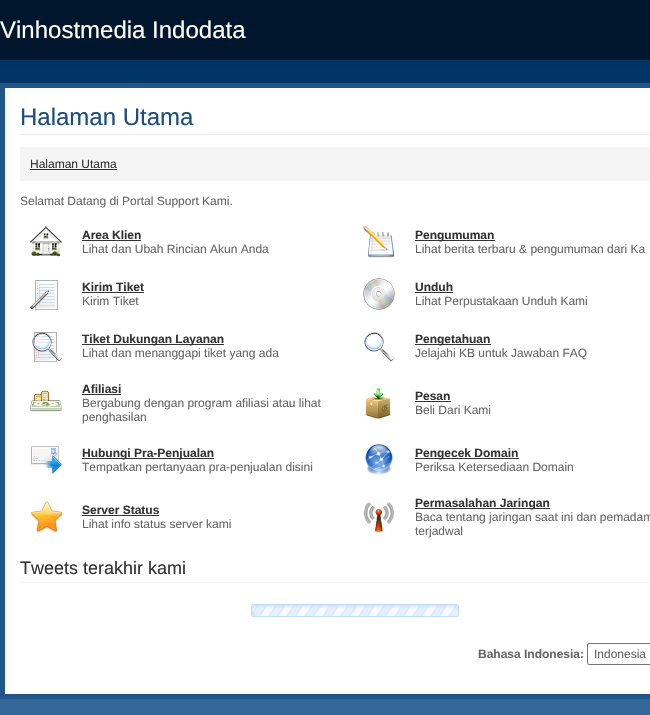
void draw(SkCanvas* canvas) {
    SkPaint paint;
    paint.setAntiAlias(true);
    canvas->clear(0xFF336699);
    canvas->drawImageRect(SkImages::DeferredFromEncodedData(SkData::MakeFromFileName("img1.png")), SkRect::MakeXYWH(0, 63, 650, 20), SkSamplingOptions());
    paint.setColor(0xFF00162C);
    canvas->drawRect(SkRect::MakeXYWH(0, 0, 650, 60), paint);
    paint.setColor(0xFF003366);
    canvas->drawRect(SkRect::MakeXYWH(0, 60, 650, 3), paint);
    SkFont font1(fontMgr->matchFamilyStyle("Liberation Sans", SkFontStyle::Normal()), 24);
    font1.setSubpixel(true);
    paint.setColor(0xFFFFFFFF);
    canvas->drawString("Vinhostmedia Indodata", 0, 38, font1, paint);
    canvas->drawRect(SkRect::MakeXYWH(2.5f, 85.5f, 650, 611), paint);
    paint.setStyle(SkPaint::kStroke_Style);
    paint.setStrokeWidth(5);
    paint.setColor(0xFF225588);
    canvas->drawRect(SkRect::MakeXYWH(2.5f, 85.5f, 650, 611), paint);
    paint.setStyle(SkPaint::kFill_Style);
    paint.setColor(0xFFEBEBEB);
    canvas->drawRect(SkRect::MakeXYWH(20, 134, 630, 1), paint);
    paint.setColor(0xFF1A4D80);
    canvas->drawString("Halaman Utama", 20, 125, font1, paint);
    paint.setColor(0xFFF5F5F5);
    canvas->drawRect(SkRect::MakeXYWH(20, 147, 630, 34), paint);
    SkFont font2(fontMgr->matchFamilyStyle("Liberation Sans", SkFontStyle::Normal()), 12);
    font2.setSubpixel(true);
    paint.setColor(0xFF333333);
    canvas->drawString("Halaman Utama", 30, 168, font2, paint);
    canvas->drawRect(SkRect::MakeXYWH(30, 169, 87, 1), paint);
    paint.setColor(0xFF666666);
    canvas->drawString("Selamat Datang di Portal Support Kami.", 20, 205, font2, paint);
    canvas->drawImageRect(SkImages::DeferredFromEncodedData(SkData::MakeFromFileName("img2.png")), SkRect::MakeXYWH(30, 226, 32, 31), SkSamplingOptions());
    SkFont font3(fontMgr->matchFamilyStyle("Liberation Sans", SkFontStyle::Bold()), 12);
    font3.setSubpixel(true);
    paint.setColor(0xFF333333);
    canvas->drawString("Area Klien", 82, 239, font3, paint);
    canvas->drawRect(SkRect::MakeXYWH(82, 240, 59, 1), paint);
    paint.setColor(0xFF666666);
    canvas->drawString("Lihat dan Ubah Rincian Akun Anda", 82, 253, font2, paint);
    canvas->drawImageRect(SkImages::DeferredFromEncodedData(SkData::MakeFromFileName("img3.png")), SkRect::MakeXYWH(363, 226, 32, 32), SkSamplingOptions());
    paint.setColor(0xFF333333);
    canvas->drawRect(SkRect::MakeXYWH(415, 240, 80, 1), paint);
    canvas->drawString("Pengumuman", 415, 239, font3, paint);
    paint.setColor(0xFF666666);
    canvas->drawString("Lihat berita terbaru & pengumuman dari Ka", 415, 253, font2, paint);
    canvas->drawImageRect(SkImages::DeferredFromEncodedData(SkData::MakeFromFileName("img4.png")), SkRect::MakeXYWH(30, 280, 28, 30), SkSamplingOptions());
    paint.setColor(0xFF333333);
    canvas->drawString("Kirim Tiket", 82, 291, font3, paint);
    canvas->drawRect(SkRect::MakeXYWH(82, 292, 62, 1), paint);
    paint.setColor(0xFF666666);
    canvas->drawString("Kirim Tiket", 82, 305, font2, paint);
    canvas->drawImageRect(SkImages::DeferredFromEncodedData(SkData::MakeFromFileName("img5.png")), SkRect::MakeXYWH(363, 278, 32, 32), SkSamplingOptions());
    paint.setColor(0xFF333333);
    canvas->drawString("Unduh", 415, 291, font3, paint);
    canvas->drawRect(SkRect::MakeXYWH(415, 292, 38, 1), paint);
    paint.setColor(0xFF666666);
    canvas->drawString("Lihat Perpustakaan Unduh Kami", 415, 305, font2, paint);
    canvas->drawImageRect(SkImages::DeferredFromEncodedData(SkData::MakeFromFileName("img6.png")), SkRect::MakeXYWH(32, 332, 30, 30), SkSamplingOptions());
    paint.setColor(0xFF333333);
    canvas->drawRect(SkRect::MakeXYWH(82, 344, 142, 1), paint);
    canvas->drawString("Tiket Dukungan Layanan", 82, 343, font3, paint);
    paint.setColor(0xFF666666);
    canvas->drawString("Lihat dan menanggapi tiket yang ada", 82, 357, font2, paint);
    canvas->drawImageRect(SkImages::DeferredFromEncodedData(SkData::MakeFromFileName("img7.png")), SkRect::MakeXYWH(364, 332, 30, 30), SkSamplingOptions());
    paint.setColor(0xFF333333);
    canvas->drawRect(SkRect::MakeXYWH(415, 344, 76, 1), paint);
    canvas->drawString("Pengetahuan", 415, 343, font3, paint);
    paint.setColor(0xFF666666);
    canvas->drawString("Jelajahi KB untuk Jawaban FAQ", 415, 357, font2, paint);
    canvas->drawImageRect(SkImages::DeferredFromEncodedData(SkData::MakeFromFileName("img8.png")), SkRect::MakeXYWH(30, 390, 32, 22), SkSamplingOptions());
    paint.setColor(0xFF333333);
    canvas->drawString("Afiliasi", 82, 393, font3, paint);
    canvas->drawRect(SkRect::MakeXYWH(82, 394, 39, 1), paint);
    paint.setColor(0xFF666666);
    canvas->drawString("Bergabung dengan program afiliasi atau lihat", 82, 407, font2, paint);
    canvas->drawString("penghasilan", 82, 421, font2, paint);
    canvas->drawImageRect(SkImages::DeferredFromEncodedData(SkData::MakeFromFileName("img9.png")), SkRect::MakeXYWH(365, 388, 26, 31), SkSamplingOptions());
    paint.setColor(0xFF333333);
    canvas->drawString("Pesan", 415, 400, font3, paint);
    canvas->drawRect(SkRect::MakeXYWH(415, 401, 36, 1), paint);
    paint.setColor(0xFF666666);
    canvas->drawString("Beli Dari Kami", 415, 414, font2, paint);
    canvas->drawImageRect(SkImages::DeferredFromEncodedData(SkData::MakeFromFileName("img10.png")), SkRect::MakeXYWH(31, 446, 31, 28), SkSamplingOptions());
    paint.setColor(0xFF333333);
    canvas->drawRect(SkRect::MakeXYWH(82, 458, 132, 1), paint);
    canvas->drawString("Hubungi Pra-Penjualan", 82, 457, font3, paint);
    paint.setColor(0xFF666666);
    canvas->drawString("Tempatkan pertanyaan pra-penjualan disini", 82, 471, font2, paint);
    canvas->drawImageRect(SkImages::DeferredFromEncodedData(SkData::MakeFromFileName("img11.png")), SkRect::MakeXYWH(365, 444, 28, 31), SkSamplingOptions());
    paint.setColor(0xFF333333);
    canvas->drawRect(SkRect::MakeXYWH(415, 458, 104, 1), paint);
    canvas->drawString("Pengecek Domain", 415, 457, font3, paint);
    paint.setColor(0xFF666666);
    canvas->drawString("Periksa Ketersediaan Domain", 415, 471, font2, paint);
    canvas->drawImageRect(SkImages::DeferredFromEncodedData(SkData::MakeFromFileName("img12.png")), SkRect::MakeXYWH(31, 501, 31, 32), SkSamplingOptions());
    paint.setColor(0xFF333333);
    canvas->drawString("Server Status", 82, 514, font3, paint);
    canvas->drawRect(SkRect::MakeXYWH(82, 515, 77, 1), paint);
    paint.setColor(0xFF666666);
    canvas->drawString("Lihat info status server kami", 82, 528, font2, paint);
    canvas->drawImageRect(SkImages::DeferredFromEncodedData(SkData::MakeFromFileName("img13.png")), SkRect::MakeXYWH(363, 502, 31, 30), SkSamplingOptions());
    paint.setColor(0xFF333333);
    canvas->drawRect(SkRect::MakeXYWH(415, 508, 135, 1), paint);
    canvas->drawString("Permasalahan Jaringan", 415, 507, font3, paint);
    paint.setColor(0xFF666666);
    canvas->drawString("Baca tentang jaringan saat ini dan pemadam", 415, 521, font2, paint);
    canvas->drawString("terjadwal", 415, 535, font2, paint);
    paint.setColor(0xFFF5F5F5);
    canvas->drawRect(SkRect::MakeXYWH(20, 582, 630, 1), paint);
    SkFont font4(fontMgr->matchFamilyStyle("Liberation Sans", SkFontStyle::Normal()), 18);
    font4.setSubpixel(true);
    paint.setColor(0xFF333333);
    canvas->drawString("Tweets terakhir kami", 20, 574, font4, paint);
    canvas->drawImageRect(SkImages::DeferredFromEncodedData(SkData::MakeFromFileName("img14.png")), SkRect::MakeXYWH(251, 604, 208, 13), SkSamplingOptions());
    paint.setColor(0xFF666666);
    canvas->drawString("Bahasa Indonesia:", 478, 658, font3, paint);
    paint.setStyle(SkPaint::kStroke_Style);
    paint.setStrokeWidth(1);
    paint.setColor(0xFF767676);
    canvas->drawRoundRect(SkRect::MakeXYWH(587.5f, 643.5f, 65, 21), 1.5f, 1.5f, paint);
    paint.setStyle(SkPaint::kFill_Style);
    paint.setColor(0xFF666666);
    canvas->drawString("Indonesia", 594, 658, font2, paint);
}
